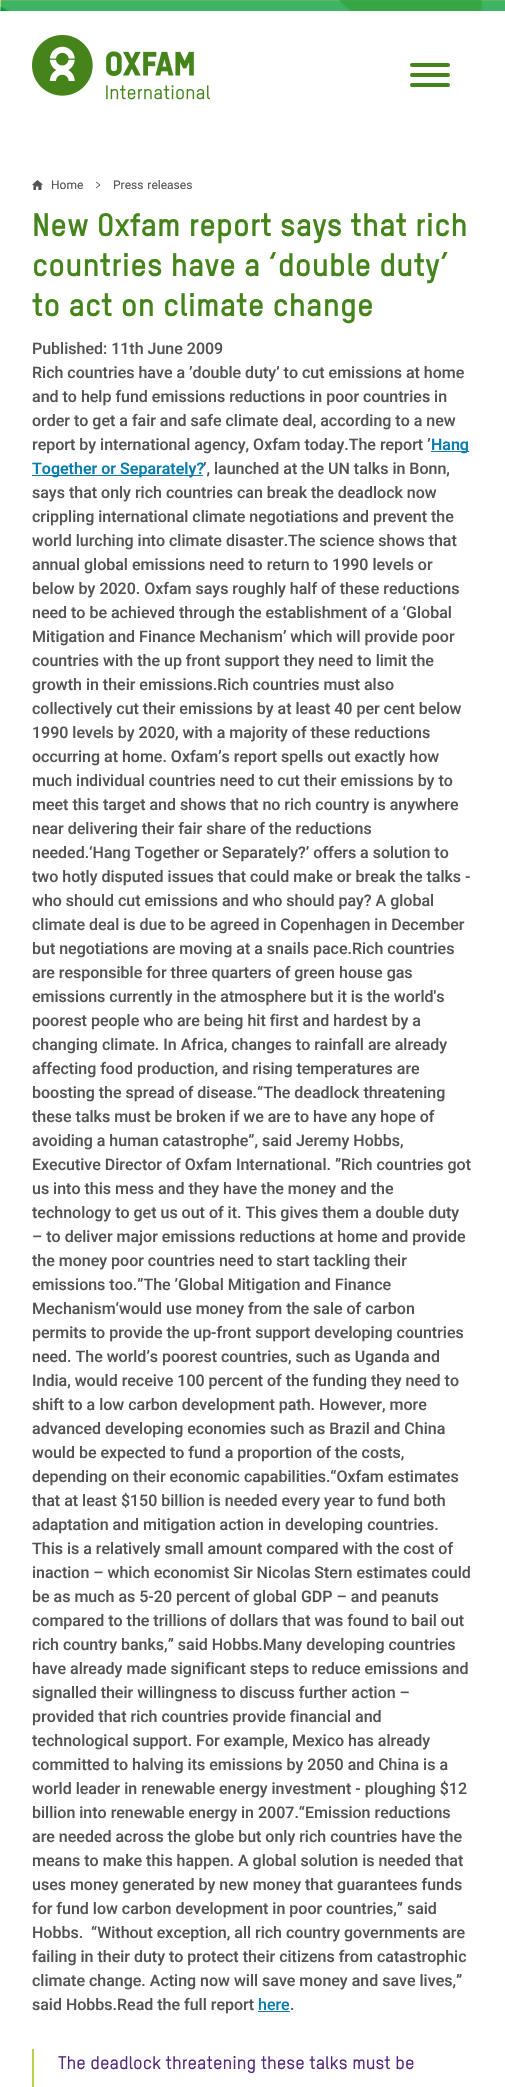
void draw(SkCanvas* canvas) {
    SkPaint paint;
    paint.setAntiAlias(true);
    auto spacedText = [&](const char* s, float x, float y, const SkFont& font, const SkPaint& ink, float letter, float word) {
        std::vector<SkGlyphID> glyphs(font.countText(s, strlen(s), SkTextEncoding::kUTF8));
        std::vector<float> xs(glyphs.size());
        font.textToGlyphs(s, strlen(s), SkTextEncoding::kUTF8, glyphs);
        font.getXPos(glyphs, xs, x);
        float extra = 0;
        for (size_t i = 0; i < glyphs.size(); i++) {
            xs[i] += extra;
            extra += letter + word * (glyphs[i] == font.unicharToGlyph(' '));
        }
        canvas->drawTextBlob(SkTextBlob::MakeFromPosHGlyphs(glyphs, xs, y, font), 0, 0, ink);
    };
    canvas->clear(0xFFFFFFFF);
    canvas->drawImageRect(SkImages::DeferredFromEncodedData(SkData::MakeFromFileName("img1.png")), SkRect::MakeXYWH(0, 0, 505, 11), SkSamplingOptions());
    canvas->drawImageRect(SkImages::DeferredFromEncodedData(SkData::MakeFromFileName("img2.png")), SkRect::MakeXYWH(32, 35, 178, 65), SkSamplingOptions());
    paint.setColor(0xFF44841A);
    canvas->drawRoundRect(SkRect::MakeXYWH(410, 83, 40, 4), 2, 2, paint);
    canvas->drawRoundRect(SkRect::MakeXYWH(410, 63, 40, 4), 2, 2, paint);
    canvas->drawRoundRect(SkRect::MakeXYWH(410, 73, 40, 4), 2, 2, paint);
    canvas->drawImageRect(SkImages::DeferredFromEncodedData(SkData::MakeFromFileName("img3.png")), SkRect::MakeXYWH(32, 180, 11, 10), SkSamplingOptions());
    SkFont font1(fontMgr->matchFamilyStyle("Roboto", SkFontStyle::Normal()), 12);
    font1.setSubpixel(true);
    paint.setColor(0xFF545454);
    canvas->drawString("Home", 51, 189, font1, paint);
    paint.setStyle(SkPaint::kStroke_Style);
    paint.setStrokeWidth(1);
    paint.setColor(0xFF545554);
    canvas->drawPath(SkPathBuilder().moveTo(96, 182).lineTo(100, 185).lineTo(96, 188).detach(), paint);
    paint.setStyle(SkPaint::kFill_Style);
    paint.setColor(0xFF545454);
    spacedText("Press releases", 113, 189, font1, paint, 0, 1);
    SkFont font2(fontMgr->matchFamilyStyle("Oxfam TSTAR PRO", SkFontStyle::Bold()), 32);
    font2.setSubpixel(true);
    paint.setColor(0xFF44841A);
    canvas->drawString("New Oxfam report says that rich", 32, 236, font2, paint);
    canvas->drawString("countries have a ‘double duty’", 32, 276, font2, paint);
    canvas->drawString("to act on climate change", 32, 316, font2, paint);
    SkFont font3(fontMgr->matchFamilyStyle("Roboto", SkFontStyle(500, SkFontStyle::kNormal_Width, SkFontStyle::kUpright_Slant)), 16);
    font3.setSubpixel(true);
    paint.setColor(0xFF545454);
    canvas->drawString("Published: 11th June 2009", 32, 354, font3, paint);
    canvas->drawString("Rich countries have a ’double duty’ to cut emissions at home", 32, 378, font3, paint);
    canvas->drawString("and to help fund emissions reductions in poor countries in", 32, 402, font3, paint);
    canvas->drawString("order to get a fair and safe climate deal, according to a new", 32, 426, font3, paint);
    canvas->drawString("report by international agency, Oxfam today.The report ’", 32, 450, font3, paint);
    paint.setColor(0xFF097DAF);
    canvas->drawRect(SkRect::MakeXYWH(431, 451, 38, 1), paint);
    SkFont font4(fontMgr->matchFamilyStyle("Roboto", SkFontStyle(600, SkFontStyle::kNormal_Width, SkFontStyle::kUpright_Slant)), 16);
    font4.setSubpixel(true);
    canvas->drawString("Hang", 431, 450, font4, paint);
    canvas->drawRect(SkRect::MakeXYWH(32, 475, 171, 1), paint);
    canvas->drawString("Together or Separately?", 32, 474, font4, paint);
    paint.setColor(0xFF545454);
    canvas->drawString("’, launched at the UN talks in Bonn,", 203, 474, font3, paint);
    canvas->drawString("says that only rich countries can break the deadlock now", 32, 498, font3, paint);
    canvas->drawString("crippling international climate negotiations and prevent the", 32, 522, font3, paint);
    canvas->drawString("world lurching into climate disaster.The science shows that", 32, 546, font3, paint);
    canvas->drawString("annual global emissions need to return to 1990 levels or", 32, 570, font3, paint);
    canvas->drawString("below by 2020. Oxfam says roughly half of these reductions", 32, 594, font3, paint);
    canvas->drawString("need to be achieved through the establishment of a ‘Global", 32, 618, font3, paint);
    canvas->drawString("Mitigation and Finance Mechanism’ which will provide poor", 32, 642, font3, paint);
    canvas->drawString("countries with the up front support they need to limit the", 32, 666, font3, paint);
    canvas->drawString("growth in their emissions.Rich countries must also", 32, 690, font3, paint);
    canvas->drawString("collectively cut their emissions by at least 40 per cent below", 32, 714, font3, paint);
    canvas->drawString("1990 levels by 2020, with a majority of these reductions", 32, 738, font3, paint);
    canvas->drawString("occurring at home. Oxfam’s report spells out exactly how", 32, 762, font3, paint);
    canvas->drawString("much individual countries need to cut their emissions by to", 32, 786, font3, paint);
    canvas->drawString("meet this target and shows that no rich country is anywhere", 32, 810, font3, paint);
    canvas->drawString("near delivering their fair share of the reductions", 32, 834, font3, paint);
    canvas->drawString("needed.‘Hang Together or Separately?’ offers a solution to", 32, 858, font3, paint);
    canvas->drawString("two hotly disputed issues that could make or break the talks -", 32, 882, font3, paint);
    canvas->drawString("who should cut emissions and who should pay? A global", 32, 906, font3, paint);
    canvas->drawString("climate deal is due to be agreed in Copenhagen in December", 32, 930, font3, paint);
    canvas->drawString("but negotiations are moving at a snails pace.Rich countries", 32, 954, font3, paint);
    canvas->drawString("are responsible for three quarters of green house gas", 32, 978, font3, paint);
    canvas->drawString("emissions currently in the atmosphere but it is the world's", 32, 1002, font3, paint);
    canvas->drawString("poorest people who are being hit first and hardest by a", 32, 1026, font3, paint);
    canvas->drawString("changing climate. In Africa, changes to rainfall are already", 32, 1050, font3, paint);
    canvas->drawString("affecting food production, and rising temperatures are", 32, 1074, font3, paint);
    canvas->drawString("boosting the spread of disease.“The deadlock threatening", 32, 1098, font3, paint);
    canvas->drawString("these talks must be broken if we are to have any hope of", 32, 1122, font3, paint);
    canvas->drawString("avoiding a human catastrophe”, said Jeremy Hobbs,", 32, 1146, font3, paint);
    canvas->drawString("Executive Director of Oxfam International. ”Rich countries got", 32, 1170, font3, paint);
    canvas->drawString("us into this mess and they have the money and the", 32, 1194, font3, paint);
    canvas->drawString("technology to get us out of it. This gives them a double duty", 32, 1218, font3, paint);
    canvas->drawString("– to deliver major emissions reductions at home and provide", 32, 1242, font3, paint);
    canvas->drawString("the money poor countries need to start tackling their", 32, 1266, font3, paint);
    canvas->drawString("emissions too.”The ’Global Mitigation and Finance", 32, 1290, font3, paint);
    canvas->drawString("Mechanism‘would use money from the sale of carbon", 32, 1314, font3, paint);
    canvas->drawString("permits to provide the up-front support developing countries", 32, 1338, font3, paint);
    canvas->drawString("need. The world’s poorest countries, such as Uganda and", 32, 1362, font3, paint);
    canvas->drawString("India, would receive 100 percent of the funding they need to", 32, 1386, font3, paint);
    canvas->drawString("shift to a low carbon development path. However, more", 32, 1410, font3, paint);
    canvas->drawString("advanced developing economies such as Brazil and China", 32, 1434, font3, paint);
    canvas->drawString("would be expected to fund a proportion of the costs,", 32, 1458, font3, paint);
    canvas->drawString("depending on their economic capabilities.“Oxfam estimates", 32, 1482, font3, paint);
    canvas->drawString("that at least $150 billion is needed every year to fund both", 32, 1506, font3, paint);
    canvas->drawString("adaptation and mitigation action in developing countries.", 32, 1530, font3, paint);
    canvas->drawString("This is a relatively small amount compared with the cost of", 32, 1554, font3, paint);
    canvas->drawString("inaction – which economist Sir Nicolas Stern estimates could", 32, 1578, font3, paint);
    canvas->drawString("be as much as 5-20 percent of global GDP – and peanuts", 32, 1602, font3, paint);
    canvas->drawString("compared to the trillions of dollars that was found to bail out", 32, 1626, font3, paint);
    canvas->drawString("rich country banks,” said Hobbs.Many developing countries", 32, 1650, font3, paint);
    canvas->drawString("have already made significant steps to reduce emissions and", 32, 1674, font3, paint);
    canvas->drawString("signalled their willingness to discuss further action –", 32, 1698, font3, paint);
    canvas->drawString("provided that rich countries provide financial and", 32, 1722, font3, paint);
    canvas->drawString("technological support. For example, Mexico has already", 32, 1746, font3, paint);
    canvas->drawString("committed to halving its emissions by 2050 and China is a", 32, 1770, font3, paint);
    canvas->drawString("world leader in renewable energy investment - ploughing $12", 32, 1794, font3, paint);
    canvas->drawString("billion into renewable energy in 2007.“Emission reductions", 32, 1818, font3, paint);
    canvas->drawString("are needed across the globe but only rich countries have the", 32, 1842, font3, paint);
    canvas->drawString("means to make this happen. A global solution is needed that", 32, 1866, font3, paint);
    canvas->drawString("uses money generated by new money that guarantees funds", 32, 1890, font3, paint);
    canvas->drawString("for fund low carbon development in poor countries,” said", 32, 1914, font3, paint);
    canvas->drawString("Hobbs.  “Without exception, all rich country governments are", 32, 1938, font3, paint);
    canvas->drawString("failing in their duty to protect their citizens from catastrophic", 32, 1962, font3, paint);
    canvas->drawString("climate change. Acting now will save money and save lives,”", 32, 1986, font3, paint);
    canvas->drawString("said Hobbs.Read the full report", 32, 2010, font3, paint);
    paint.setColor(0xFF097DAF);
    canvas->drawString("here", 258, 2010, font3, paint);
    canvas->drawRect(SkRect::MakeXYWH(258, 2011, 32, 1), paint);
    paint.setColor(0xFF545454);
    canvas->drawString(".", 290, 2010, font3, paint);
    paint.setColor(0xFFBECE45);
    canvas->drawRect(SkRect::MakeXYWH(32, 2049, 2, 38), paint);
    SkFont font5(fontMgr->matchFamilyStyle("Oxfam TSTAR PRO", SkFontStyle(500, SkFontStyle::kNormal_Width, SkFontStyle::kUpright_Slant)), 18);
    font5.setSubpixel(true);
    paint.setColor(0xFF53297D);
    canvas->drawString("The deadlock threatening these talks must be", 58, 2069, font5, paint);
}
